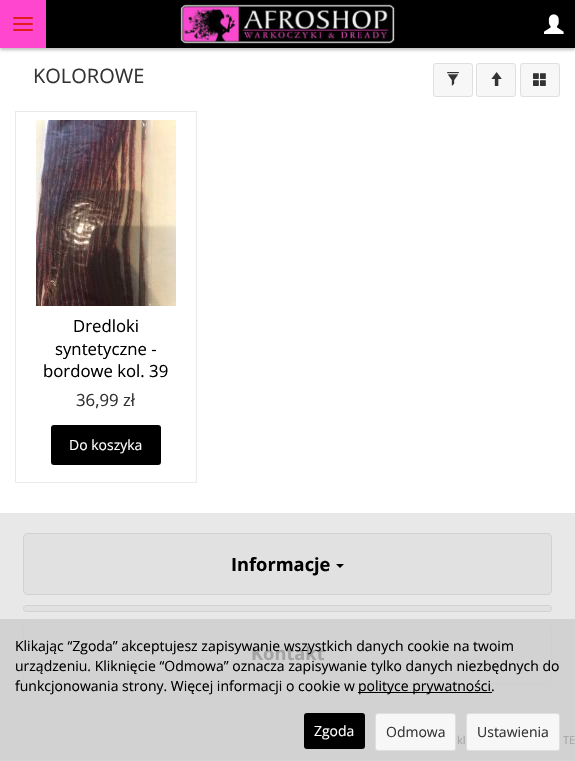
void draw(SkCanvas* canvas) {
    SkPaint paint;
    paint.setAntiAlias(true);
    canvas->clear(0xFFFFFFFF);
    paint.setColor(0xFFD6D6D6);
    canvas->drawRect(SkRect::MakeXYWH(0, 760, 575, 1), paint);
    paint.setColor(0x40000000);
    paint.setMaskFilter(SkMaskFilter::MakeBlur(kNormal_SkBlurStyle, 1.5f));
    canvas->drawRect(SkRect::MakeXYWH(0, 2, 575, 48), paint);
    paint.setMaskFilter(nullptr);
    paint.setColor(0xFF000000);
    canvas->drawRect(SkRect::MakeXYWH(46, 0, 529, 48), paint);
    paint.setColor(0xFFFE46CF);
    canvas->drawRect(SkRect::MakeXYWH(0, 0, 46, 48), paint);
    paint.setColor(0xFFE21D1C);
    canvas->drawRoundRect(SkRect::MakeXYWH(13, 17, 20, 2), 1, 1, paint);
    canvas->drawRoundRect(SkRect::MakeXYWH(13, 23, 20, 2), 1, 1, paint);
    canvas->drawRoundRect(SkRect::MakeXYWH(13, 29, 20, 2), 1, 1, paint);
    canvas->drawImageRect(SkImages::DeferredFromEncodedData(SkData::MakeFromFileName("img1.png")), SkRect::MakeXYWH(180, 4, 215, 40), SkSamplingOptions());
    canvas->drawImageRect(SkImages::DeferredFromEncodedData(SkData::MakeFromFileName("img2.png")), SkRect::MakeXYWH(544, 14, 20, 20), SkSamplingOptions());
    SkFont font1(fontMgr->matchFamilyStyle("Open Sans", SkFontStyle::Normal()), 20);
    font1.setSubpixel(true);
    paint.setColor(0xFF333333);
    canvas->drawString("KOLOROWE", 33, 83, font1, paint);
    paint.setColor(0xFFF7F7F7);
    canvas->drawRoundRect(SkRect::MakeXYWH(433.5f, 63.5f, 39, 33), 2.5f, 2.5f, paint);
    paint.setStyle(SkPaint::kStroke_Style);
    paint.setStrokeWidth(1);
    paint.setColor(0xFFDFDFDF);
    canvas->drawRoundRect(SkRect::MakeXYWH(433.5f, 63.5f, 39, 33), 2.5f, 2.5f, paint);
    canvas->drawImageRect(SkImages::DeferredFromEncodedData(SkData::MakeFromFileName("img3.png")), SkRect::MakeXYWH(447, 72, 12, 14), SkSamplingOptions());
    paint.setStyle(SkPaint::kFill_Style);
    paint.setColor(0xFFF7F7F7);
    canvas->drawRoundRect(SkRect::MakeXYWH(476.5f, 63.5f, 39, 33), 2.5f, 2.5f, paint);
    paint.setStyle(SkPaint::kStroke_Style);
    paint.setColor(0xFFDFDFDF);
    canvas->drawRoundRect(SkRect::MakeXYWH(476.5f, 63.5f, 39, 33), 2.5f, 2.5f, paint);
    canvas->drawImageRect(SkImages::DeferredFromEncodedData(SkData::MakeFromFileName("img4.png")), SkRect::MakeXYWH(491, 72, 11, 14), SkSamplingOptions());
    paint.setStyle(SkPaint::kFill_Style);
    paint.setColor(0xFFF7F7F7);
    canvas->drawRoundRect(SkRect::MakeXYWH(520.5f, 63.5f, 39, 33), 2.5f, 2.5f, paint);
    paint.setStyle(SkPaint::kStroke_Style);
    paint.setColor(0xFFDFDFDF);
    canvas->drawRoundRect(SkRect::MakeXYWH(520.5f, 63.5f, 39, 33), 2.5f, 2.5f, paint);
    canvas->drawImageRect(SkImages::DeferredFromEncodedData(SkData::MakeFromFileName("img5.png")), SkRect::MakeXYWH(533, 73, 13, 13), SkSamplingOptions());
    paint.setColor(0xFFEAEAEA);
    canvas->drawRect(SkRect::MakeXYWH(15.5f, 111.5f, 181, 371), paint);
    canvas->drawImageRect(SkImages::DeferredFromEncodedData(SkData::MakeFromFileName("img6.png")), SkRect::MakeXYWH(36, 120, 140, 186), SkSamplingOptions());
    SkFont font2(fontMgr->matchFamilyStyle("Open Sans", SkFontStyle::Normal()), 16.75f);
    font2.setSubpixel(true);
    paint.setStyle(SkPaint::kFill_Style);
    paint.setColor(0xFF000000);
    canvas->drawString("Dredloki", 73, 332, font2, paint);
    canvas->drawString("syntetyczne -", 55, 355, font2, paint);
    canvas->drawString("bordowe kol. 39", 43, 377, font2, paint);
    paint.setColor(0xFF333333);
    canvas->drawString("36,99 zł", 76, 406, font2, paint);
    paint.setColor(0xFF000000);
    canvas->drawRoundRect(SkRect::MakeXYWH(51, 425, 110, 40), 3, 3, paint);
    SkFont font3(fontMgr->matchFamilyStyle("Open Sans", SkFontStyle::Normal()), 14);
    font3.setSubpixel(true);
    paint.setColor(0xFFFFFFFF);
    canvas->drawString("Do koszyka", 69, 450, font3, paint);
    paint.setColor(0xFFE8E8E8);
    canvas->drawRect(SkRect::MakeXYWH(0, 513, 575, 106), paint);
    paint.setColor(0xFFD2D2D2);
    canvas->drawRect(SkRect::MakeXYWH(0, 619, 575, 141), paint);
    paint.setColor(0xFFE1E1E1);
    canvas->drawRoundRect(SkRect::MakeXYWH(23, 533, 529, 62), 5, 5, paint);
    paint.setStyle(SkPaint::kStroke_Style);
    paint.setColor(0x12000000);
    canvas->drawRoundRect(SkRect::MakeXYWH(23.5f, 533.5f, 528, 61), 4.5f, 4.5f, paint);
    SkFont font4(fontMgr->matchFamilyStyle("Open Sans", SkFontStyle::Bold()), 18.25f);
    font4.setSubpixel(true);
    paint.setStyle(SkPaint::kFill_Style);
    paint.setColor(0xFF000000);
    canvas->drawString("Informacje", 231, 571, font4, paint);
    canvas->drawPath(SkPathBuilder().moveTo(336, 564).lineTo(344, 564).lineTo(340, 568).close().detach(), paint);
    paint.setColor(0xFFE1E1E1);
    canvas->drawRoundRect(SkRect::MakeXYWH(23.5f, 605.5f, 528, 6), 3, 3, paint);
    paint.setStyle(SkPaint::kStroke_Style);
    paint.setColor(0xFFD1D1D1);
    canvas->drawRoundRect(SkRect::MakeXYWH(23.5f, 605.5f, 528, 6), 3, 3, paint);
    paint.setColor(0x12A3A3A3);
    canvas->drawRoundRect(SkRect::MakeXYWH(23.5f, 622.5f, 528, 61), 4.5f, 4.5f, paint);
    paint.setStyle(SkPaint::kFill_Style);
    paint.setColor(0xFFA3A3A3);
    canvas->drawString("Kontakt", 251, 660, font4, paint);
    SkFont font5(fontMgr->matchFamilyStyle("Open Sans", SkFontStyle::Normal()), 11);
    font5.setSubpixel(true);
    canvas->drawString("kl", 457, 744, font5, paint);
    canvas->drawString("TE", 563, 744, font5, paint);
    paint.setColor(0xFF000000);
    canvas->drawString("Klikając “Zgoda” akceptujesz zapisywanie wszystkich danych cookie na twoim", 15, 651, font3, paint);
    canvas->drawString("urządzeniu. Kliknięcie “Odmowa” oznacza zapisywanie tylko danych niezbędnych do", 15, 671, font3, paint);
    canvas->drawString("funkcjonowania strony. Więcej informacji o cookie w", 15, 691, font3, paint);
    canvas->drawRect(SkRect::MakeXYWH(358, 692, 134, 1), paint);
    canvas->drawString("polityce prywatności.", 358, 691, font3, paint);
    canvas->drawRoundRect(SkRect::MakeXYWH(304, 713, 61, 36), 3, 3, paint);
    paint.setColor(0xFFFFFFFF);
    canvas->drawString("Zgoda", 314, 736, font3, paint);
    paint.setColor(0xFFF7F7F7);
    canvas->drawRoundRect(SkRect::MakeXYWH(375.5f, 713.5f, 80, 37), 2.5f, 2.5f, paint);
    paint.setStyle(SkPaint::kStroke_Style);
    paint.setColor(0xFFDFDFDF);
    canvas->drawRoundRect(SkRect::MakeXYWH(375.5f, 713.5f, 80, 37), 2.5f, 2.5f, paint);
    paint.setStyle(SkPaint::kFill_Style);
    paint.setColor(0xFF333333);
    canvas->drawString("Odmowa", 386, 737, font3, paint);
    paint.setColor(0xFFF7F7F7);
    canvas->drawRoundRect(SkRect::MakeXYWH(466.5f, 713.5f, 93, 37), 2.5f, 2.5f, paint);
    paint.setStyle(SkPaint::kStroke_Style);
    paint.setColor(0xFFDFDFDF);
    canvas->drawRoundRect(SkRect::MakeXYWH(466.5f, 713.5f, 93, 37), 2.5f, 2.5f, paint);
    paint.setStyle(SkPaint::kFill_Style);
    paint.setColor(0xFF333333);
    canvas->drawString("Ustawienia", 477, 737, font3, paint);
}
